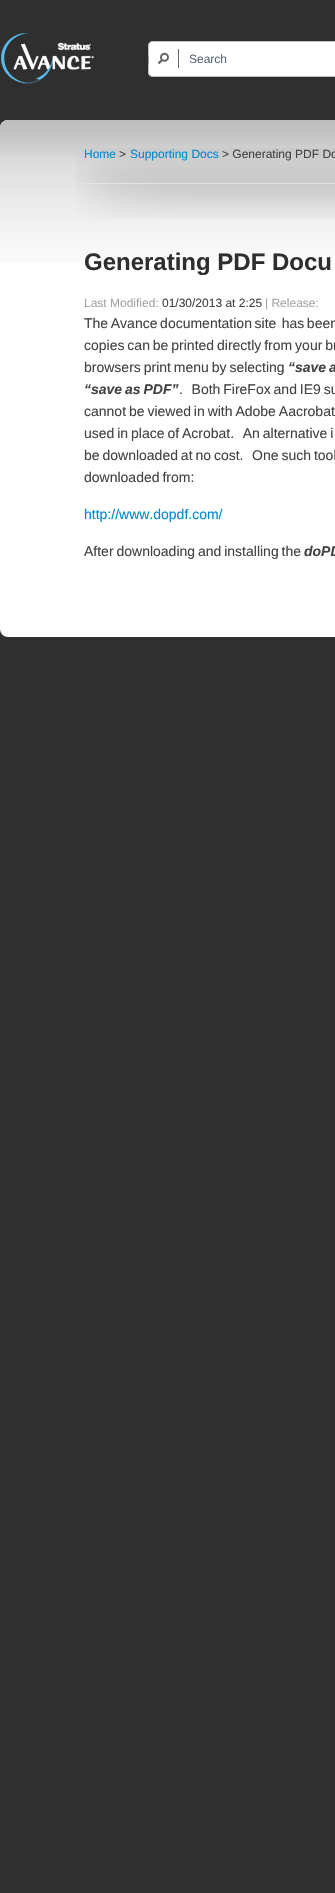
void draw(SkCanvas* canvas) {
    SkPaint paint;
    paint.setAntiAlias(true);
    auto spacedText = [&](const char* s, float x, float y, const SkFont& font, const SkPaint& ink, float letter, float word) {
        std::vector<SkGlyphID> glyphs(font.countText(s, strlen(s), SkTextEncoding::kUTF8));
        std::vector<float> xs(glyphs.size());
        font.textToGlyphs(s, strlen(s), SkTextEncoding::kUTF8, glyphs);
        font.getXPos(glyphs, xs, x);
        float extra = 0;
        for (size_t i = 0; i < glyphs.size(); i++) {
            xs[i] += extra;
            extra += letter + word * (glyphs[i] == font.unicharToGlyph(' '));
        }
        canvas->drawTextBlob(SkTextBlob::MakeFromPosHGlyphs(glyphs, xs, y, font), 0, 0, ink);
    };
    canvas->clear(0xFF2F2F2F);
    canvas->drawImageRect(SkImages::DeferredFromEncodedData(SkData::MakeFromFileName("img1.png")), SkRect::MakeXYWH(1, 33, 93, 51), SkSamplingOptions());
    paint.setColor(0xFFFFFFFF);
    canvas->drawRoundRect(SkRect::MakeXYWH(148, 41, 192, 36), 5, 5, paint);
    canvas->drawImageRect(SkImages::DeferredFromEncodedData(SkData::MakeFromFileName("img2.png")), SkRect::MakeXYWH(148, 49, 31, 19), SkSamplingOptions());
    paint.setStyle(SkPaint::kStroke_Style);
    paint.setStrokeWidth(1);
    paint.setColor(0xCCABAEBB);
    canvas->drawRoundRect(SkRect::MakeXYWH(148.5f, 41.5f, 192, 35), 4.5f, 4.5f, paint);
    SkFont font1(fontMgr->matchFamilyStyle("Liberation Sans", SkFontStyle::Normal()), 12);
    font1.setSubpixel(true);
    paint.setStyle(SkPaint::kFill_Style);
    paint.setColor(0xFF576574);
    canvas->drawString("Search", 189, 63, font1, paint);
    paint.setColor(0xFFFFFFFF);
    canvas->drawRoundRect(SkRect::MakeXYWH(0, 120, 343, 517), 8, 8, paint);
    canvas->drawImageRect(SkImages::DeferredFromEncodedData(SkData::MakeFromFileName("img3.png")), SkRect::MakeXYWH(0, 120, 335, 142), SkSamplingOptions());
    canvas->drawImageRect(SkImages::DeferredFromEncodedData(SkData::MakeFromFileName("img4.png")), SkRect::MakeXYWH(76, 148, 259, 71), SkSamplingOptions());
    paint.setColor(0xFF0088CC);
    canvas->drawString("Home", 84, 158, font1, paint);
    paint.setColor(0xFF424242);
    canvas->drawString(">", 119, 158, font1, paint);
    paint.setColor(0xFF0088CC);
    canvas->drawString("Supporting Docs", 130, 158, font1, paint);
    paint.setColor(0xFF424242);
    canvas->drawString("> Generating PDF Do", 222, 158, font1, paint);
    SkFont font2(fontMgr->matchFamilyStyle("Liberation Sans", SkFontStyle::Bold()), 24);
    font2.setSubpixel(true);
    paint.setColor(0xFF2E2E2E);
    canvas->drawString("Generating PDF Docu", 84, 270, font2, paint);
    paint.setColor(0xFFA4A4A4);
    canvas->drawString("Last Modified:", 84, 307, font1, paint);
    paint.setColor(0xFF424242);
    canvas->drawString("01/30/2013 at 2:25", 162, 307, font1, paint);
    paint.setColor(0xFFA4A4A4);
    canvas->drawString("| Release:", 265, 307, font1, paint);
    SkFont font3(fontMgr->matchFamilyStyle("Liberation Sans", SkFontStyle::Normal()), 14);
    font3.setSubpixel(true);
    paint.setColor(0xFF424242);
    spacedText("The Avance documentation site  has been", 84, 328, font3, paint, 0, -1.25f);
    spacedText("copies can be printed directly from your br", 84, 350, font3, paint, 0, -1);
    spacedText("browsers print menu by selecting", 84, 372, font3, paint, 0, -1);
    SkFont font4(fontMgr->matchFamilyStyle("Liberation Sans", SkFontStyle::BoldItalic()), 14);
    font4.setSubpixel(true);
    spacedText("“save a", 288, 372, font4, paint, 0, -1);
    spacedText("“save as PDF”", 84, 394, font4, paint, 0, -1);
    spacedText(".   Both FireFox and IE9 su", 179, 394, font3, paint, 0, -1);
    spacedText("cannot be viewed in with Adobe Aacrobat", 84, 416, font3, paint, 0, -1);
    spacedText("used in place of Acrobat.   An alternative i", 84, 438, font3, paint, 0, -1);
    spacedText("be downloaded at no cost.   One such tool", 84, 460, font3, paint, 0, -1);
    spacedText("downloaded from:", 84, 482, font3, paint, 0, -1);
    paint.setColor(0xFF0088CC);
    canvas->drawString("http://www.dopdf.com/", 84, 519, font3, paint);
    paint.setColor(0xFF424242);
    spacedText("After downloading and installing the", 84, 556, font3, paint, 0, -1);
    canvas->drawString("doPD", 304, 556, font4, paint);
}
